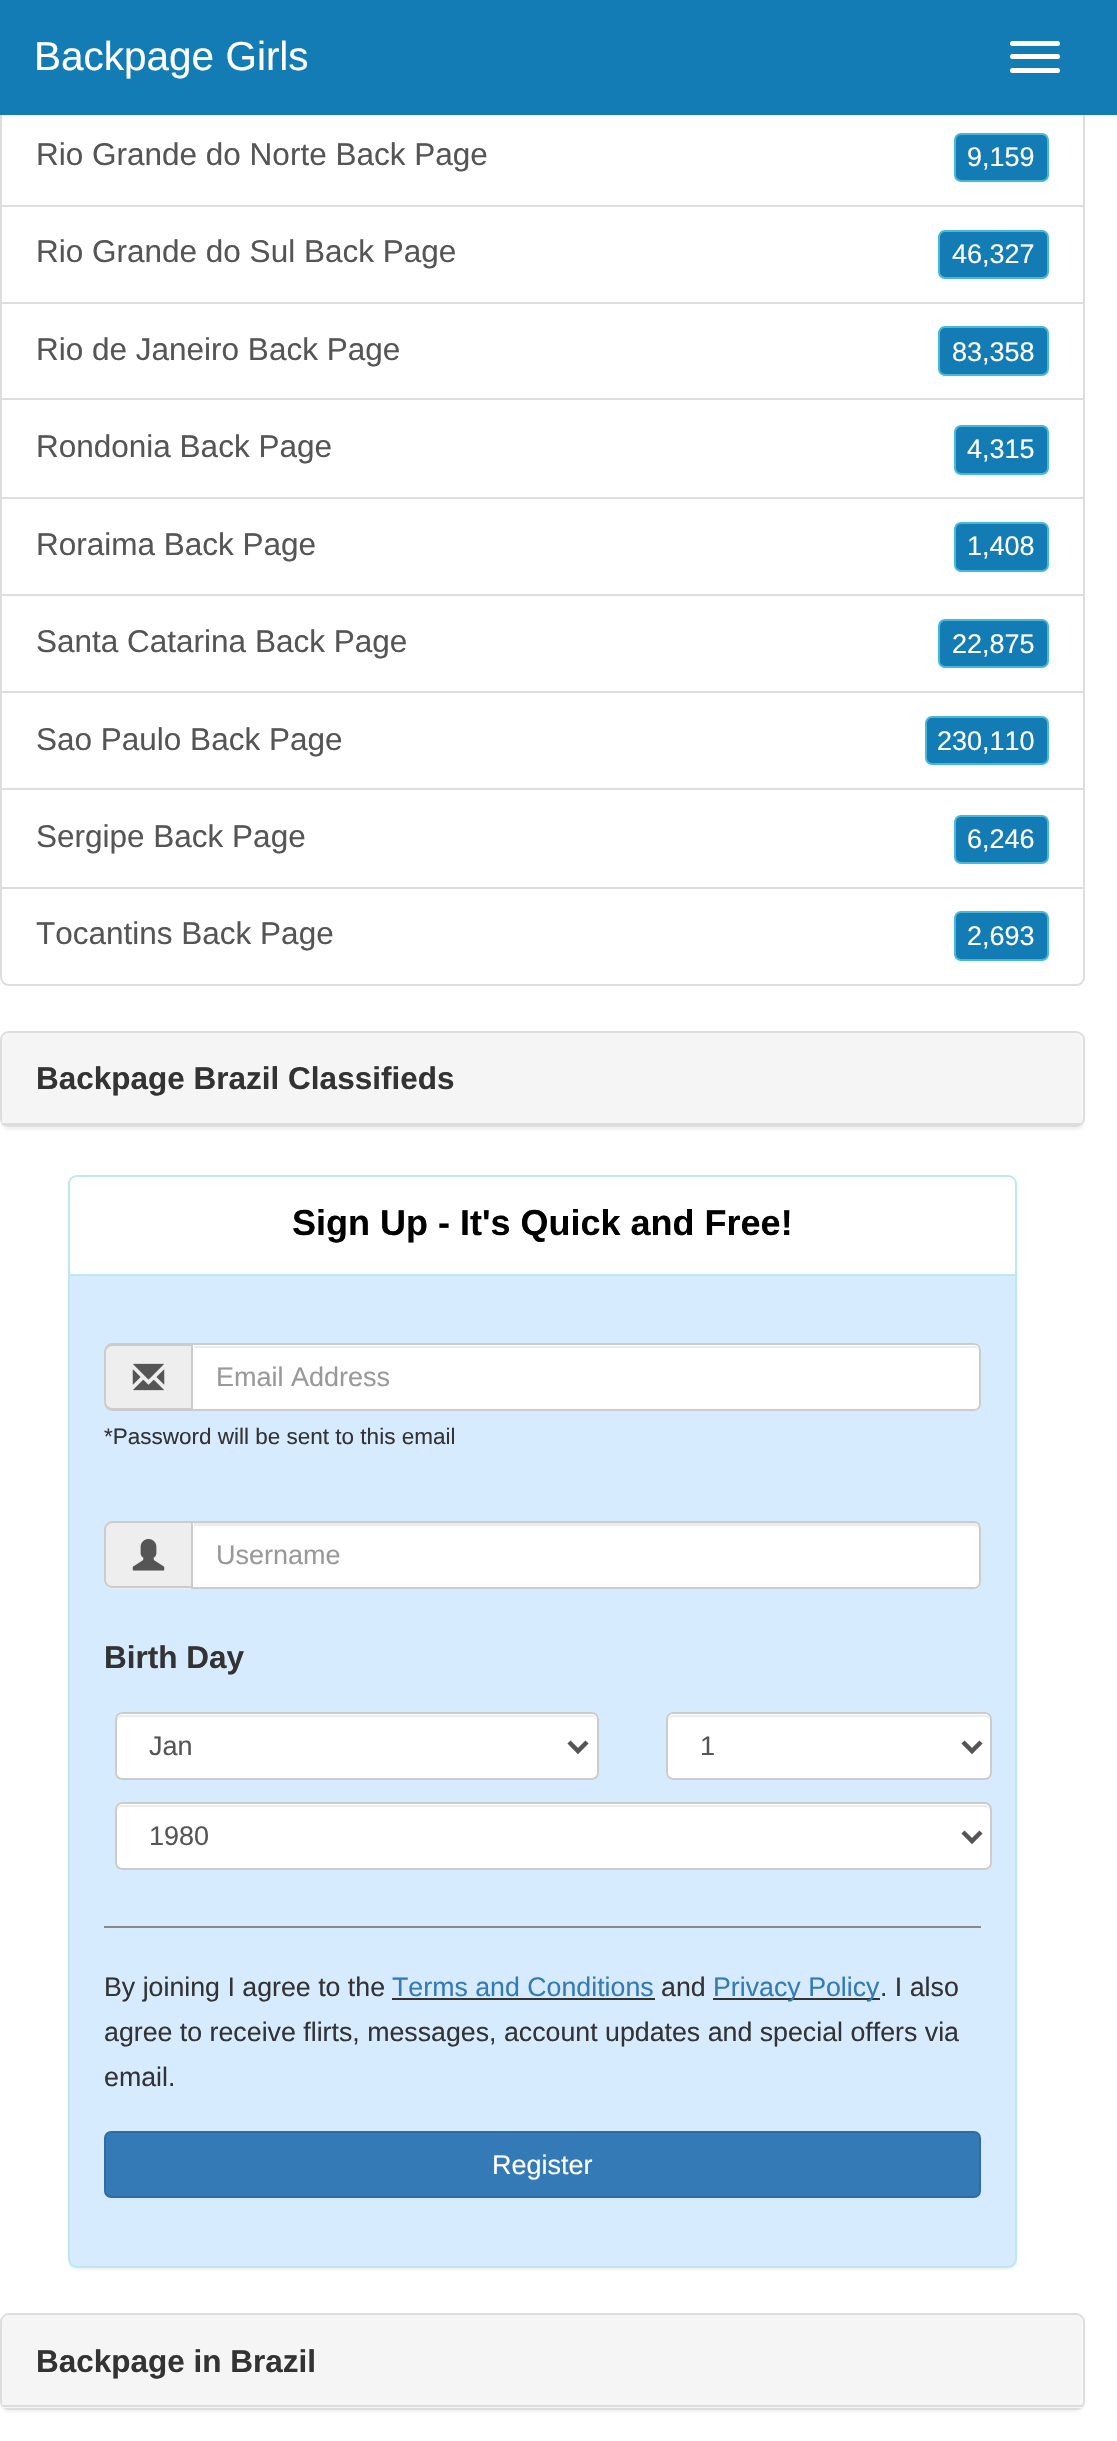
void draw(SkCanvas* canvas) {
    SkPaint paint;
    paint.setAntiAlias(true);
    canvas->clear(0xFFFFFFFF);
    paint.setStyle(SkPaint::kStroke_Style);
    paint.setStrokeWidth(2);
    paint.setColor(0xFFDDDDDD);
    canvas->drawRect(SkRect::MakeXYWH(1, 107, 1083, 99), paint);
    paint.setStyle(SkPaint::kFill_Style);
    paint.setColor(0xFF137CB4);
    canvas->drawRect(SkRect::MakeXYWH(0, 0, 1117, 115), paint);
    SkFont font1(fontMgr->matchFamilyStyle("Liberation Sans", SkFontStyle::Normal()), 40.5f);
    font1.setSubpixel(true);
    paint.setColor(0xFFFFFFFF);
    canvas->drawString("Backpage Girls", 34, 70, font1, paint);
    canvas->drawRoundRect(SkRect::MakeXYWH(1010, 41, 50, 5), 2.5f, 2.5f, paint);
    canvas->drawRoundRect(SkRect::MakeXYWH(1010, 54, 50, 5), 2.5f, 2.5f, paint);
    canvas->drawRoundRect(SkRect::MakeXYWH(1010, 68, 50, 5), 2.5f, 2.5f, paint);
    SkFont font2(fontMgr->matchFamilyStyle("Liberation Sans", SkFontStyle::Normal()), 31.5f);
    font2.setSubpixel(true);
    paint.setColor(0xFF555555);
    canvas->drawString("Rio Grande do Norte Back Page", 36, 165, font2, paint);
    paint.setColor(0xFF137CB4);
    canvas->drawRoundRect(SkRect::MakeXYWH(955, 134, 93, 47), 6, 6, paint);
    paint.setStyle(SkPaint::kStroke_Style);
    paint.setColor(0xFF46B8DA);
    canvas->drawRoundRect(SkRect::MakeXYWH(955, 134, 93, 47), 6, 6, paint);
    SkFont font3(fontMgr->matchFamilyStyle("Liberation Sans", SkFontStyle::Normal()), 27);
    font3.setSubpixel(true);
    paint.setStyle(SkPaint::kFill_Style);
    paint.setColor(0xFFFFFFFF);
    canvas->drawString("9,159", 967, 166, font3, paint);
    paint.setStyle(SkPaint::kStroke_Style);
    paint.setColor(0xFFDDDDDD);
    canvas->drawRect(SkRect::MakeXYWH(1, 206, 1083, 97), paint);
    paint.setStyle(SkPaint::kFill_Style);
    paint.setColor(0xFF555555);
    canvas->drawString("Rio Grande do Sul Back Page", 36, 262, font2, paint);
    paint.setColor(0xFF137CB4);
    canvas->drawRoundRect(SkRect::MakeXYWH(939, 231, 109, 47), 6, 6, paint);
    paint.setStyle(SkPaint::kStroke_Style);
    paint.setColor(0xFF46B8DA);
    canvas->drawRoundRect(SkRect::MakeXYWH(939, 231, 109, 47), 6, 6, paint);
    paint.setStyle(SkPaint::kFill_Style);
    paint.setColor(0xFFFFFFFF);
    canvas->drawString("46,327", 952, 263, font3, paint);
    paint.setStyle(SkPaint::kStroke_Style);
    paint.setColor(0xFFDDDDDD);
    canvas->drawRect(SkRect::MakeXYWH(1, 303, 1083, 97), paint);
    paint.setStyle(SkPaint::kFill_Style);
    paint.setColor(0xFF555555);
    canvas->drawString("Rio de Janeiro Back Page", 36, 360, font2, paint);
    paint.setColor(0xFF137CB4);
    canvas->drawRoundRect(SkRect::MakeXYWH(939, 327, 109, 48), 6, 6, paint);
    paint.setStyle(SkPaint::kStroke_Style);
    paint.setColor(0xFF46B8DA);
    canvas->drawRoundRect(SkRect::MakeXYWH(939, 327, 109, 48), 6, 6, paint);
    paint.setStyle(SkPaint::kFill_Style);
    paint.setColor(0xFFFFFFFF);
    canvas->drawString("83,358", 952, 361, font3, paint);
    canvas->drawRect(SkRect::MakeXYWH(2, 400, 1081, 1), paint);
    paint.setStyle(SkPaint::kStroke_Style);
    paint.setColor(0xFFDDDDDD);
    canvas->drawRect(SkRect::MakeXYWH(1, 399, 1083, 100), paint);
    paint.setStyle(SkPaint::kFill_Style);
    paint.setColor(0xFF555555);
    canvas->drawString("Rondonia Back Page", 36, 457, font2, paint);
    paint.setColor(0xFF137CB4);
    canvas->drawRoundRect(SkRect::MakeXYWH(955, 426, 93, 48), 6, 6, paint);
    paint.setStyle(SkPaint::kStroke_Style);
    paint.setColor(0xFF46B8DA);
    canvas->drawRoundRect(SkRect::MakeXYWH(955, 426, 93, 48), 6, 6, paint);
    paint.setStyle(SkPaint::kFill_Style);
    paint.setColor(0xFFFFFFFF);
    canvas->drawString("4,315", 967, 458, font3, paint);
    canvas->drawRect(SkRect::MakeXYWH(2, 499, 1081, 1), paint);
    paint.setStyle(SkPaint::kStroke_Style);
    paint.setColor(0xFFDDDDDD);
    canvas->drawRect(SkRect::MakeXYWH(1, 498, 1083, 97), paint);
    paint.setStyle(SkPaint::kFill_Style);
    paint.setColor(0xFF555555);
    canvas->drawString("Roraima Back Page", 36, 555, font2, paint);
    paint.setColor(0xFF137CB4);
    canvas->drawRoundRect(SkRect::MakeXYWH(955, 523, 93, 48), 6, 6, paint);
    paint.setStyle(SkPaint::kStroke_Style);
    paint.setColor(0xFF46B8DA);
    canvas->drawRoundRect(SkRect::MakeXYWH(955, 523, 93, 48), 6, 6, paint);
    paint.setStyle(SkPaint::kFill_Style);
    paint.setColor(0xFFFFFFFF);
    canvas->drawString("1,408", 967, 555, font3, paint);
    paint.setStyle(SkPaint::kStroke_Style);
    paint.setColor(0xFFDDDDDD);
    canvas->drawRect(SkRect::MakeXYWH(1, 595, 1083, 97), paint);
    paint.setStyle(SkPaint::kFill_Style);
    paint.setColor(0xFF555555);
    canvas->drawString("Santa Catarina Back Page", 36, 652, font2, paint);
    paint.setColor(0xFF137CB4);
    canvas->drawRoundRect(SkRect::MakeXYWH(939, 620, 109, 47), 6, 6, paint);
    paint.setStyle(SkPaint::kStroke_Style);
    paint.setColor(0xFF46B8DA);
    canvas->drawRoundRect(SkRect::MakeXYWH(939, 620, 109, 47), 6, 6, paint);
    paint.setStyle(SkPaint::kFill_Style);
    paint.setColor(0xFFFFFFFF);
    canvas->drawString("22,875", 952, 653, font3, paint);
    paint.setStyle(SkPaint::kStroke_Style);
    paint.setColor(0xFFDDDDDD);
    canvas->drawRect(SkRect::MakeXYWH(1, 692, 1083, 97), paint);
    paint.setStyle(SkPaint::kFill_Style);
    paint.setColor(0xFF555555);
    canvas->drawString("Sao Paulo Back Page", 36, 750, font2, paint);
    paint.setColor(0xFF137CB4);
    canvas->drawRoundRect(SkRect::MakeXYWH(926, 717, 122, 47), 6, 6, paint);
    paint.setStyle(SkPaint::kStroke_Style);
    paint.setColor(0xFF46B8DA);
    canvas->drawRoundRect(SkRect::MakeXYWH(926, 717, 122, 47), 6, 6, paint);
    paint.setStyle(SkPaint::kFill_Style);
    paint.setColor(0xFFFFFFFF);
    canvas->drawString("230,110", 937, 750, font3, paint);
    paint.setStyle(SkPaint::kStroke_Style);
    paint.setColor(0xFFDDDDDD);
    canvas->drawRect(SkRect::MakeXYWH(1, 789, 1083, 99), paint);
    paint.setStyle(SkPaint::kFill_Style);
    paint.setColor(0xFF555555);
    canvas->drawString("Sergipe Back Page", 36, 847, font2, paint);
    paint.setColor(0xFF137CB4);
    canvas->drawRoundRect(SkRect::MakeXYWH(955, 816, 93, 47), 6, 6, paint);
    paint.setStyle(SkPaint::kStroke_Style);
    paint.setColor(0xFF46B8DA);
    canvas->drawRoundRect(SkRect::MakeXYWH(955, 816, 93, 47), 6, 6, paint);
    paint.setStyle(SkPaint::kFill_Style);
    paint.setColor(0xFFFFFFFF);
    canvas->drawString("6,246", 967, 848, font3, paint);
    canvas->drawPath(SkPathBuilder().moveTo(1, 888).lineTo(1084, 888).lineTo(1084, 977).cubicTo(1084, 981.5f, 1080.5f, 985, 1076, 985).lineTo(9, 985).cubicTo(4.5f, 985, 1, 981.5f, 1, 977).close().detach(), paint);
    paint.setStyle(SkPaint::kStroke_Style);
    paint.setColor(0xFFDDDDDD);
    canvas->drawPath(SkPathBuilder().moveTo(1, 888).lineTo(1084, 888).lineTo(1084, 977).cubicTo(1084, 981.5f, 1080.5f, 985, 1076, 985).lineTo(9, 985).cubicTo(4.5f, 985, 1, 981.5f, 1, 977).close().detach(), paint);
    paint.setStyle(SkPaint::kFill_Style);
    paint.setColor(0xFF555555);
    canvas->drawString("Tocantins Back Page", 36, 944, font2, paint);
    paint.setColor(0xFF137CB4);
    canvas->drawRoundRect(SkRect::MakeXYWH(955, 912, 93, 48), 6, 6, paint);
    paint.setStyle(SkPaint::kStroke_Style);
    paint.setColor(0xFF46B8DA);
    canvas->drawRoundRect(SkRect::MakeXYWH(955, 912, 93, 48), 6, 6, paint);
    paint.setStyle(SkPaint::kFill_Style);
    paint.setColor(0xFFFFFFFF);
    canvas->drawString("2,693", 967, 945, font3, paint);
    paint.setColor(0x0D000000);
    paint.setMaskFilter(SkMaskFilter::MakeBlur(kNormal_SkBlurStyle, 1));
    canvas->drawRoundRect(SkRect::MakeXYWH(0, 1033, 1085, 97), 9, 9, paint);
    paint.setMaskFilter(nullptr);
    paint.setColor(0xFFFFFFFF);
    canvas->drawRoundRect(SkRect::MakeXYWH(1, 1032, 1083, 94), 8, 8, paint);
    paint.setStyle(SkPaint::kStroke_Style);
    paint.setColor(0xFFDDDDDD);
    canvas->drawRoundRect(SkRect::MakeXYWH(1, 1032, 1083, 94), 8, 8, paint);
    paint.setStyle(SkPaint::kFill_Style);
    paint.setColor(0xFFF5F5F5);
    canvas->drawPath(SkPathBuilder().moveTo(9, 1033).lineTo(1075, 1033).cubicTo(1079, 1033, 1082, 1036, 1082, 1040).lineTo(1082, 1125).lineTo(2, 1125).lineTo(2, 1040).cubicTo(2, 1036, 5, 1033, 9, 1033).close().detach(), paint);
    paint.setColor(0xFFDDDDDD);
    canvas->drawRect(SkRect::MakeXYWH(2, 1123, 1080, 2), paint);
    SkFont font4(fontMgr->matchFamilyStyle("Liberation Sans", SkFontStyle::Bold()), 31.5f);
    font4.setSubpixel(true);
    paint.setColor(0xFF333333);
    canvas->drawString("Backpage Brazil Classifieds", 36, 1089, font4, paint);
    paint.setColor(0x0D000000);
    paint.setMaskFilter(SkMaskFilter::MakeBlur(kNormal_SkBlurStyle, 1));
    canvas->drawRoundRect(SkRect::MakeXYWH(68, 1177, 949, 1093), 9, 9, paint);
    paint.setMaskFilter(nullptr);
    paint.setColor(0xFFD7EBFF);
    canvas->drawRoundRect(SkRect::MakeXYWH(69, 1176, 947, 1091), 8, 8, paint);
    paint.setStyle(SkPaint::kStroke_Style);
    paint.setColor(0xFFBCE8F1);
    canvas->drawRoundRect(SkRect::MakeXYWH(69, 1176, 947, 1091), 8, 8, paint);
    paint.setStyle(SkPaint::kFill_Style);
    paint.setColor(0xFFFFFFFF);
    canvas->drawPath(SkPathBuilder().moveTo(77, 1177).lineTo(1008, 1177).cubicTo(1012, 1177, 1015, 1180, 1015, 1184).lineTo(1015, 1276).lineTo(70, 1276).lineTo(70, 1184).cubicTo(70, 1180, 73, 1177, 77, 1177).close().detach(), paint);
    paint.setColor(0xFFBCE8F1);
    canvas->drawRect(SkRect::MakeXYWH(70, 1274, 945, 2), paint);
    SkFont font5(fontMgr->matchFamilyStyle("Liberation Sans", SkFontStyle::Bold()), 36);
    font5.setSubpixel(true);
    paint.setColor(0xFF000000);
    canvas->drawString("Sign Up - It's Quick and Free!", 292, 1235, font5, paint);
    paint.setColor(0xFFEEEEEE);
    canvas->drawPath(SkPathBuilder().moveTo(113, 1343).lineTo(191, 1343).lineTo(191, 1411).lineTo(113, 1411).cubicTo(108, 1411, 104, 1407, 104, 1402).lineTo(104, 1352).cubicTo(104, 1347, 108, 1343, 113, 1343).close().detach(), paint);
    paint.setColor(0xFFCCCCCC);
    canvas->drawPath(SkPathBuilder(SkPathFillType::kEvenOdd).moveTo(112, 1343).lineTo(191, 1343).lineTo(191, 1411).lineTo(112, 1411).cubicTo(108, 1411, 104, 1407, 104, 1402).lineTo(104, 1352).cubicTo(104, 1347, 108, 1343, 112, 1343).close().moveTo(112, 1346).lineTo(191, 1346).lineTo(191, 1408).lineTo(112, 1408).cubicTo(109, 1408, 106, 1405, 106, 1402).lineTo(106, 1352).cubicTo(106, 1349, 109, 1346, 112, 1346).close().detach(), paint);
    canvas->drawImageRect(SkImages::DeferredFromEncodedData(SkData::MakeFromFileName("img1.png")), SkRect::MakeXYWH(132, 1363, 33, 28), SkSamplingOptions());
    paint.setColor(0xFFFFFFFF);
    canvas->drawPath(SkPathBuilder().moveTo(191, 1343).lineTo(974, 1343).cubicTo(978, 1343, 981, 1346, 981, 1350).lineTo(981, 1404).cubicTo(981, 1408, 978, 1411, 974, 1411).lineTo(191, 1411).close().detach(), paint);
    paint.setColor(0xFFECECEC);
    canvas->drawPath(SkPathBuilder().moveTo(194, 1348).lineTo(974, 1348).cubicTo(977, 1348, 979, 1350, 979, 1352).lineTo(979, 1351).cubicTo(979, 1348, 977, 1346, 974, 1346).lineTo(194, 1346).close().detach(), paint);
    paint.setStyle(SkPaint::kStroke_Style);
    paint.setColor(0xFFCCCCCC);
    canvas->drawPath(SkPathBuilder().moveTo(192, 1344).lineTo(974, 1344).cubicTo(977.5f, 1344, 980, 1346.5f, 980, 1350).lineTo(980, 1404).cubicTo(980, 1407.5f, 977.5f, 1410, 974, 1410).lineTo(192, 1410).close().detach(), paint);
    paint.setStyle(SkPaint::kFill_Style);
    paint.setColor(0xFF999999);
    canvas->drawString("Email Address", 216, 1386, font3, paint);
    SkFont font6(fontMgr->matchFamilyStyle("Liberation Sans", SkFontStyle::Normal()), 22.5f);
    font6.setSubpixel(true);
    paint.setColor(0xFF333333);
    canvas->drawString("*Password will be sent to this email", 104, 1444, font6, paint);
    paint.setColor(0xFFEEEEEE);
    canvas->drawPath(SkPathBuilder().moveTo(113, 1521).lineTo(191, 1521).lineTo(191, 1589).lineTo(113, 1589).cubicTo(108, 1589, 104, 1585, 104, 1580).lineTo(104, 1530).cubicTo(104, 1525, 108, 1521, 113, 1521).close().detach(), paint);
    paint.setColor(0xFFCCCCCC);
    canvas->drawPath(SkPathBuilder(SkPathFillType::kEvenOdd).moveTo(112, 1521).lineTo(191, 1521).lineTo(191, 1588).lineTo(112, 1588).cubicTo(108, 1588, 104, 1584, 104, 1580).lineTo(104, 1530).cubicTo(104, 1525, 108, 1521, 112, 1521).close().moveTo(112, 1523).lineTo(191, 1523).lineTo(191, 1586).lineTo(112, 1586).cubicTo(109, 1586, 106, 1583, 106, 1580).lineTo(106, 1530).cubicTo(106, 1526, 109, 1523, 112, 1523).close().detach(), paint);
    canvas->drawImageRect(SkImages::DeferredFromEncodedData(SkData::MakeFromFileName("img2.png")), SkRect::MakeXYWH(132, 1539, 33, 32), SkSamplingOptions());
    paint.setColor(0xFFFFFFFF);
    canvas->drawPath(SkPathBuilder().moveTo(191, 1521).lineTo(974, 1521).cubicTo(978, 1521, 981, 1524, 981, 1528).lineTo(981, 1582).cubicTo(981, 1586, 978, 1589, 974, 1589).lineTo(191, 1589).close().detach(), paint);
    paint.setColor(0xFFECECEC);
    canvas->drawPath(SkPathBuilder().moveTo(194, 1526).lineTo(974, 1526).cubicTo(977, 1526, 979, 1528, 979, 1530).cubicTo(979, 1527, 978, 1523, 974, 1523).lineTo(194, 1523).close().detach(), paint);
    paint.setStyle(SkPaint::kStroke_Style);
    paint.setColor(0xFFCCCCCC);
    canvas->drawPath(SkPathBuilder().moveTo(192, 1522).lineTo(974, 1522).cubicTo(977.5f, 1522, 980, 1524.5f, 980, 1528).lineTo(980, 1582).cubicTo(980, 1585.5f, 977.5f, 1588, 974, 1588).lineTo(192, 1588).close().detach(), paint);
    paint.setStyle(SkPaint::kFill_Style);
    paint.setColor(0xFF999999);
    canvas->drawString("Username", 216, 1564, font3, paint);
    paint.setColor(0xFF333333);
    canvas->drawString("Birth Day", 104, 1668, font4, paint);
    paint.setColor(0xFFFFFFFF);
    canvas->drawRoundRect(SkRect::MakeXYWH(115, 1712, 484, 68), 7, 7, paint);
    paint.setColor(0xFFECECEC);
    canvas->drawPath(SkPathBuilder().moveTo(122, 1717).lineTo(592, 1717).cubicTo(594, 1717, 596, 1719, 596, 1721).lineTo(596, 1720).cubicTo(596, 1717, 594, 1715, 591, 1715).lineTo(122, 1715).cubicTo(119, 1715, 117, 1717, 117, 1720).lineTo(117, 1721).cubicTo(117, 1719, 119, 1717, 122, 1717).close().detach(), paint);
    paint.setStyle(SkPaint::kStroke_Style);
    paint.setColor(0xFFCCCCCC);
    canvas->drawRoundRect(SkRect::MakeXYWH(116, 1713, 482, 66), 6, 6, paint);
    paint.setStrokeWidth(4.5f);
    paint.setColor(0xFF555555);
    canvas->drawPath(SkPathBuilder().moveTo(569, 1742).lineTo(578, 1751).lineTo(587, 1742).detach(), paint);
    paint.setStyle(SkPaint::kFill_Style);
    canvas->drawString("Jan", 149, 1755, font3, paint);
    paint.setColor(0xFFFFFFFF);
    canvas->drawRoundRect(SkRect::MakeXYWH(666, 1712, 326, 68), 7, 7, paint);
    paint.setColor(0xFFECECEC);
    canvas->drawPath(SkPathBuilder().moveTo(673, 1717).lineTo(986, 1717).cubicTo(988, 1717, 990, 1719, 990, 1721).cubicTo(990, 1718, 988, 1715, 985, 1715).lineTo(673, 1715).cubicTo(670, 1715, 668, 1718, 668, 1721).cubicTo(668, 1719, 670, 1717, 673, 1717).close().detach(), paint);
    paint.setStyle(SkPaint::kStroke_Style);
    paint.setStrokeWidth(2);
    paint.setColor(0xFFCCCCCC);
    canvas->drawRoundRect(SkRect::MakeXYWH(667, 1713, 324, 66), 6, 6, paint);
    paint.setStrokeWidth(4.5f);
    paint.setColor(0xFF555555);
    canvas->drawPath(SkPathBuilder().moveTo(963, 1742).lineTo(972, 1751).lineTo(981, 1742).detach(), paint);
    paint.setStyle(SkPaint::kFill_Style);
    canvas->drawString("1", 700, 1755, font3, paint);
    paint.setColor(0xFFFFFFFF);
    canvas->drawRoundRect(SkRect::MakeXYWH(115, 1802, 877, 68), 7, 7, paint);
    paint.setColor(0xFFECECEC);
    canvas->drawPath(SkPathBuilder().moveTo(122, 1807).lineTo(986, 1807).cubicTo(988, 1807, 990, 1809, 990, 1811).lineTo(990, 1810).cubicTo(990, 1807, 988, 1805, 985, 1805).lineTo(122, 1805).cubicTo(119, 1805, 117, 1807, 117, 1810).lineTo(117, 1811).cubicTo(117, 1809, 119, 1807, 122, 1807).close().detach(), paint);
    paint.setStyle(SkPaint::kStroke_Style);
    paint.setStrokeWidth(2);
    paint.setColor(0xFFCCCCCC);
    canvas->drawRoundRect(SkRect::MakeXYWH(116, 1803, 875, 66), 6, 6, paint);
    paint.setStrokeWidth(4.5f);
    paint.setColor(0xFF555555);
    canvas->drawPath(SkPathBuilder().moveTo(963, 1832).lineTo(972, 1841).lineTo(981, 1832).detach(), paint);
    paint.setStyle(SkPaint::kFill_Style);
    canvas->drawString("1980", 149, 1845, font3, paint);
    paint.setColor(0xFF888888);
    canvas->drawRect(SkRect::MakeXYWH(104, 1926, 877, 2), paint);
    SkFont font7(fontMgr->matchFamilyStyle("Liberation Sans", SkFontStyle::Normal()), 26.75f);
    font7.setSubpixel(true);
    paint.setColor(0xFF333333);
    canvas->drawString("By joining I agree to the", 104, 1996, font7, paint);
    paint.setColor(0xFF337AB7);
    canvas->drawString("Terms and Conditions", 392, 1996, font7, paint);
    paint.setColor(0xFF333333);
    canvas->drawRect(SkRect::MakeXYWH(392, 1998, 263, 2), paint);
    canvas->drawString("and", 661, 1996, font7, paint);
    canvas->drawRect(SkRect::MakeXYWH(713, 1998, 167, 2), paint);
    paint.setColor(0xFF337AB7);
    canvas->drawString("Privacy Policy", 713, 1996, font7, paint);
    paint.setColor(0xFF333333);
    canvas->drawString(". I also", 880, 1996, font7, paint);
    canvas->drawString("agree to receive flirts, messages, account updates and special offers via", 104, 2041, font7, paint);
    canvas->drawString("email.", 104, 2086, font7, paint);
    paint.setColor(0xFF337AB7);
    canvas->drawRoundRect(SkRect::MakeXYWH(105, 2132, 875, 65), 6, 6, paint);
    paint.setStyle(SkPaint::kStroke_Style);
    paint.setStrokeWidth(2);
    paint.setColor(0xFF2E6DA4);
    canvas->drawRoundRect(SkRect::MakeXYWH(105, 2132, 875, 65), 6, 6, paint);
    paint.setStyle(SkPaint::kFill_Style);
    paint.setColor(0xFFFFFFFF);
    canvas->drawString("Register", 492, 2174, font3, paint);
    paint.setColor(0x0D000000);
    paint.setMaskFilter(SkMaskFilter::MakeBlur(kNormal_SkBlurStyle, 1));
    canvas->drawRoundRect(SkRect::MakeXYWH(0, 2315, 1085, 97), 9, 9, paint);
    paint.setMaskFilter(nullptr);
    paint.setColor(0xFFFFFFFF);
    canvas->drawRoundRect(SkRect::MakeXYWH(1, 2314, 1083, 95), 8, 8, paint);
    paint.setStyle(SkPaint::kStroke_Style);
    paint.setColor(0xFFDDDDDD);
    canvas->drawRoundRect(SkRect::MakeXYWH(1, 2314, 1083, 95), 8, 8, paint);
    paint.setStyle(SkPaint::kFill_Style);
    paint.setColor(0xFFF5F5F5);
    canvas->drawPath(SkPathBuilder().moveTo(9, 2315).lineTo(1075, 2315).cubicTo(1079, 2315, 1082, 2318, 1082, 2322).lineTo(1082, 2408).lineTo(2, 2408).lineTo(2, 2322).cubicTo(2, 2318, 5, 2315, 9, 2315).close().detach(), paint);
    paint.setColor(0xFFDDDDDD);
    canvas->drawRect(SkRect::MakeXYWH(2, 2405, 1080, 2), paint);
    paint.setColor(0xFF333333);
    canvas->drawString("Backpage in Brazil", 36, 2372, font4, paint);
}
